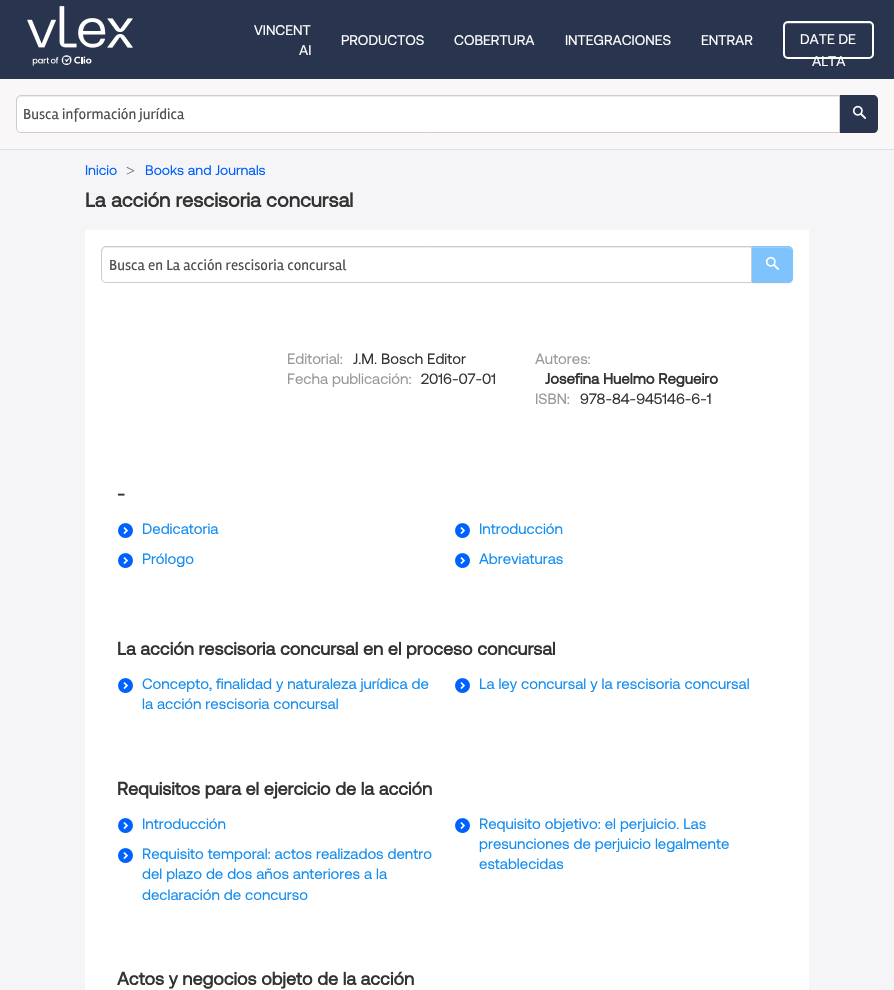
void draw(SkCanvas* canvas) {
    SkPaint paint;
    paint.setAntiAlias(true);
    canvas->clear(0xFFF5F5F7);
    paint.setColor(0xFF29354E);
    canvas->drawRect(SkRect::MakeXYWH(0, 0, 894, 79), paint);
    canvas->drawImageRect(SkImages::DeferredFromEncodedData(SkData::MakeFromFileName("img1.png")), SkRect::MakeXYWH(27, 6, 106, 60), SkSamplingOptions());
    SkFont font1(fontMgr->matchFamilyStyle("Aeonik", SkFontStyle::Normal()), 14);
    font1.setSubpixel(true);
    paint.setColor(0xFFFFFFFF);
    canvas->drawString("VINCENT", 254, 35, font1, paint);
    canvas->drawString("AI", 299, 55, font1, paint);
    canvas->drawString("PRODUCTOS", 341, 45, font1, paint);
    canvas->drawString("COBERTURA", 454, 45, font1, paint);
    canvas->drawString("INTEGRACIONES", 565, 45, font1, paint);
    canvas->drawString("ENTRAR", 701, 45, font1, paint);
    paint.setColor(0xFF545D71);
    canvas->drawPath(SkPathBuilder().moveTo(788, 24).lineTo(869, 24).cubicTo(871, 24, 872, 25, 872, 27).cubicTo(872, 19, 859, 23, 856, 23).lineTo(802, 23).cubicTo(798, 23, 785, 19, 785, 27).cubicTo(785, 25, 786, 24, 788, 24).close().detach(), paint);
    paint.setStyle(SkPaint::kStroke_Style);
    paint.setStrokeWidth(2);
    paint.setColor(0xFFFFFFFF);
    canvas->drawRoundRect(SkRect::MakeXYWH(784, 22, 89, 36), 4, 4, paint);
    paint.setStyle(SkPaint::kFill_Style);
    canvas->drawString("DATE DE", 800, 44, font1, paint);
    canvas->drawString("ALTA", 812, 66, font1, paint);
    paint.setColor(0xFFF9F7F7);
    canvas->drawRect(SkRect::MakeXYWH(0, 79, 894, 70), paint);
    paint.setColor(0xFFE1E1E1);
    canvas->drawRect(SkRect::MakeXYWH(0, 149, 894, 1), paint);
    paint.setColor(0xFFFFFFFF);
    canvas->drawPath(SkPathBuilder().moveTo(21, 95).lineTo(840, 95).lineTo(840, 133).lineTo(21, 133).cubicTo(18, 133, 16, 131, 16, 128).lineTo(16, 100).cubicTo(16, 97, 18, 95, 21, 95).close().detach(), paint);
    paint.setColor(0xFFECECEC);
    canvas->drawPath(SkPathBuilder().moveTo(21, 97).lineTo(839, 97).lineTo(839, 96).lineTo(21, 96).cubicTo(18, 96, 17, 98, 17, 101).cubicTo(17, 99, 19, 97, 21, 97).close().detach(), paint);
    paint.setStyle(SkPaint::kStroke_Style);
    paint.setStrokeWidth(1);
    paint.setColor(0xFFCCCCCC);
    canvas->drawPath(SkPathBuilder().moveTo(21, 95.5f).lineTo(839.5f, 95.5f).lineTo(839.5f, 132.5f).lineTo(21, 132.5f).cubicTo(18.5f, 132.5f, 16.5f, 130.5f, 16.5f, 128).lineTo(16.5f, 100).cubicTo(16.5f, 97.5f, 18.5f, 95.5f, 21, 95.5f).close().detach(), paint);
    SkFont font2(fontMgr->matchFamilyStyle("Rambla", SkFontStyle::Normal()), 15);
    font2.setSubpixel(true);
    paint.setStyle(SkPaint::kFill_Style);
    paint.setColor(0xFF505050);
    canvas->drawString("Busca información jurídica", 23, 119, font2, paint);
    paint.setColor(0xFF29354E);
    canvas->drawPath(SkPathBuilder().moveTo(840, 95).lineTo(873, 95).cubicTo(876, 95, 878, 97, 878, 100).lineTo(878, 128).cubicTo(878, 131, 876, 133, 873, 133).lineTo(840, 133).close().detach(), paint);
    canvas->drawImageRect(SkImages::DeferredFromEncodedData(SkData::MakeFromFileName("img2.png")), SkRect::MakeXYWH(852, 105, 14, 14), SkSamplingOptions());
    paint.setColor(0xFF0161FF);
    canvas->drawString("Inicio", 85, 175, font1, paint);
    SkFont font3(fontMgr->matchFamilyStyle("Liberation Serif", SkFontStyle::Normal()), 16);
    font3.setSubpixel(true);
    paint.setColor(0xFF71717A);
    canvas->drawString(">", 126, 176, font3, paint);
    paint.setColor(0xFF0161FF);
    canvas->drawString("Books and Journals", 145, 175, font1, paint);
    SkFont font4(fontMgr->matchFamilyStyle("Aeonik", SkFontStyle::Bold()), 20);
    font4.setSubpixel(true);
    paint.setColor(0xFF333333);
    canvas->drawString("La acción rescisoria concursal", 85, 207, font4, paint);
    paint.setColor(0xFFFFFFFF);
    canvas->drawRect(SkRect::MakeXYWH(85, 230, 724, 760), paint);
    paint.setColor(0x0D000000);
    paint.setMaskFilter(SkMaskFilter::MakeBlur(kNormal_SkBlurStyle, 1));
    canvas->drawRoundRect(SkRect::MakeXYWH(751, 247, 42, 37), 5, 5, paint);
    paint.setMaskFilter(nullptr);
    paint.setColor(0xFF7EC3FC);
    canvas->drawPath(SkPathBuilder().moveTo(751, 246).lineTo(788, 246).cubicTo(791, 246, 793, 248, 793, 251).lineTo(793, 278).cubicTo(793, 281, 791, 283, 788, 283).lineTo(751, 283).close().detach(), paint);
    paint.setColor(0xFF98CFFD);
    canvas->drawPath(SkPathBuilder().moveTo(751, 248).lineTo(782, 248).cubicTo(789, 248, 792, 248, 793, 251).cubicTo(793, 249, 791, 247, 788, 247).lineTo(751, 247).close().detach(), paint);
    paint.setColor(0x1AA8CBFF);
    canvas->drawPath(SkPathBuilder().moveTo(751, 246).lineTo(751, 247).lineTo(782, 247).cubicTo(785, 247, 793, 246, 793, 251).cubicTo(793, 248, 791, 246, 788, 246).close().detach(), paint);
    paint.setColor(0x1AA4BDDB);
    canvas->drawPath(SkPathBuilder().moveTo(751, 282).lineTo(751, 283).lineTo(782, 283).cubicTo(786, 283, 793, 284, 793, 278).cubicTo(793, 283, 785, 282, 782, 282).close().detach(), paint);
    paint.setColor(0xFFFFFFFF);
    canvas->drawPath(SkPathBuilder().moveTo(106, 246).lineTo(752, 246).lineTo(752, 283).lineTo(106, 283).cubicTo(103, 283, 101, 281, 101, 278).lineTo(101, 251).cubicTo(101, 248, 103, 246, 106, 246).close().detach(), paint);
    paint.setColor(0xFFECECEC);
    canvas->drawPath(SkPathBuilder().moveTo(106, 248).lineTo(751, 248).lineTo(751, 247).lineTo(106, 247).cubicTo(104, 247, 102, 249, 102, 251).lineTo(102, 252).cubicTo(102, 250, 104, 248, 106, 248).close().detach(), paint);
    paint.setStyle(SkPaint::kStroke_Style);
    paint.setColor(0xFFCCCCCC);
    canvas->drawPath(SkPathBuilder().moveTo(106, 246.5f).lineTo(751.5f, 246.5f).lineTo(751.5f, 282.5f).lineTo(106, 282.5f).cubicTo(103.5f, 282.5f, 101.5f, 280.5f, 101.5f, 278).lineTo(101.5f, 251).cubicTo(101.5f, 248.5f, 103.5f, 246.5f, 106, 246.5f).close().detach(), paint);
    paint.setStyle(SkPaint::kFill_Style);
    paint.setColor(0xFF505050);
    canvas->drawString("Busca en La acción rescisoria concursal", 109, 270, font2, paint);
    canvas->drawImageRect(SkImages::DeferredFromEncodedData(SkData::MakeFromFileName("img3.png")), SkRect::MakeXYWH(765, 256, 14, 14), SkSamplingOptions());
    SkFont font5(fontMgr->matchFamilyStyle("Aeonik", SkFontStyle::Normal()), 15);
    font5.setSubpixel(true);
    paint.setColor(0xFF999999);
    canvas->drawString("Editorial:", 287, 364, font5, paint);
    paint.setColor(0xFF333333);
    canvas->drawString("J.M. Bosch Editor", 353, 364, font5, paint);
    paint.setColor(0xFF999999);
    canvas->drawString("Fecha publicación:", 287, 384, font5, paint);
    paint.setColor(0xFF333333);
    canvas->drawString("2016-07-01", 421, 384, font5, paint);
    paint.setColor(0xFF999999);
    canvas->drawString("Autores:", 535, 364, font5, paint);
    SkFont font6(fontMgr->matchFamilyStyle("Aeonik", SkFontStyle::Bold()), 15);
    font6.setSubpixel(true);
    paint.setColor(0xFF333333);
    canvas->drawString("Josefina Huelmo Regueiro", 545, 384, font6, paint);
    paint.setColor(0xFF999999);
    canvas->drawString("ISBN:", 535, 404, font5, paint);
    paint.setColor(0xFF333333);
    canvas->drawString("978-84-945146-6-1", 580, 404, font5, paint);
    SkFont font7(fontMgr->matchFamilyStyle("Aeonik", SkFontStyle::Bold()), 18);
    font7.setSubpixel(true);
    canvas->drawString("-", 117, 500, font7, paint);
    canvas->drawImageRect(SkImages::DeferredFromEncodedData(SkData::MakeFromFileName("img4.png")), SkRect::MakeXYWH(118, 523, 15, 15), SkSamplingOptions());
    paint.setColor(0xFF138DF0);
    canvas->drawString("Dedicatoria", 142, 534, font5, paint);
    canvas->drawImageRect(SkImages::DeferredFromEncodedData(SkData::MakeFromFileName("img4.png")), SkRect::MakeXYWH(455, 523, 15, 15), SkSamplingOptions());
    canvas->drawString("Introducción", 479, 534, font5, paint);
    canvas->drawImageRect(SkImages::DeferredFromEncodedData(SkData::MakeFromFileName("img4.png")), SkRect::MakeXYWH(118, 553, 15, 15), SkSamplingOptions());
    canvas->drawString("Prólogo", 142, 564, font5, paint);
    canvas->drawImageRect(SkImages::DeferredFromEncodedData(SkData::MakeFromFileName("img4.png")), SkRect::MakeXYWH(455, 553, 15, 15), SkSamplingOptions());
    canvas->drawString("Abreviaturas", 479, 564, font5, paint);
    paint.setColor(0xFF333333);
    canvas->drawString("La acción rescisoria concursal en el proceso concursal", 117, 655, font7, paint);
    canvas->drawImageRect(SkImages::DeferredFromEncodedData(SkData::MakeFromFileName("img4.png")), SkRect::MakeXYWH(118, 678, 15, 15), SkSamplingOptions());
    paint.setColor(0xFF138DF0);
    canvas->drawString("Concepto, finalidad y naturaleza jurídica de", 142, 689, font5, paint);
    canvas->drawString("la acción rescisoria concursal", 142, 709, font5, paint);
    canvas->drawImageRect(SkImages::DeferredFromEncodedData(SkData::MakeFromFileName("img4.png")), SkRect::MakeXYWH(455, 678, 15, 15), SkSamplingOptions());
    canvas->drawString("La ley concursal y la rescisoria concursal", 479, 689, font5, paint);
    paint.setColor(0xFF333333);
    canvas->drawString("Requisitos para el ejercicio de la acción", 117, 795, font7, paint);
    canvas->drawImageRect(SkImages::DeferredFromEncodedData(SkData::MakeFromFileName("img4.png")), SkRect::MakeXYWH(118, 818, 15, 15), SkSamplingOptions());
    paint.setColor(0xFF138DF0);
    canvas->drawString("Introducción", 142, 829, font5, paint);
    canvas->drawImageRect(SkImages::DeferredFromEncodedData(SkData::MakeFromFileName("img4.png")), SkRect::MakeXYWH(455, 818, 15, 15), SkSamplingOptions());
    canvas->drawString("Requisito objetivo: el perjuicio. Las", 479, 829, font5, paint);
    canvas->drawString("presunciones de perjuicio legalmente", 479, 849, font5, paint);
    canvas->drawString("establecidas", 479, 869, font5, paint);
    canvas->drawImageRect(SkImages::DeferredFromEncodedData(SkData::MakeFromFileName("img4.png")), SkRect::MakeXYWH(118, 848, 15, 15), SkSamplingOptions());
    canvas->drawString("Requisito temporal: actos realizados dentro", 142, 859, font5, paint);
    canvas->drawString("del plazo de dos años anteriores a la", 142, 879, font5, paint);
    canvas->drawString("declaración de concurso", 142, 900, font5, paint);
    paint.setColor(0xFF333333);
    canvas->drawString("Actos y negocios objeto de la acción", 117, 985, font7, paint);
}
